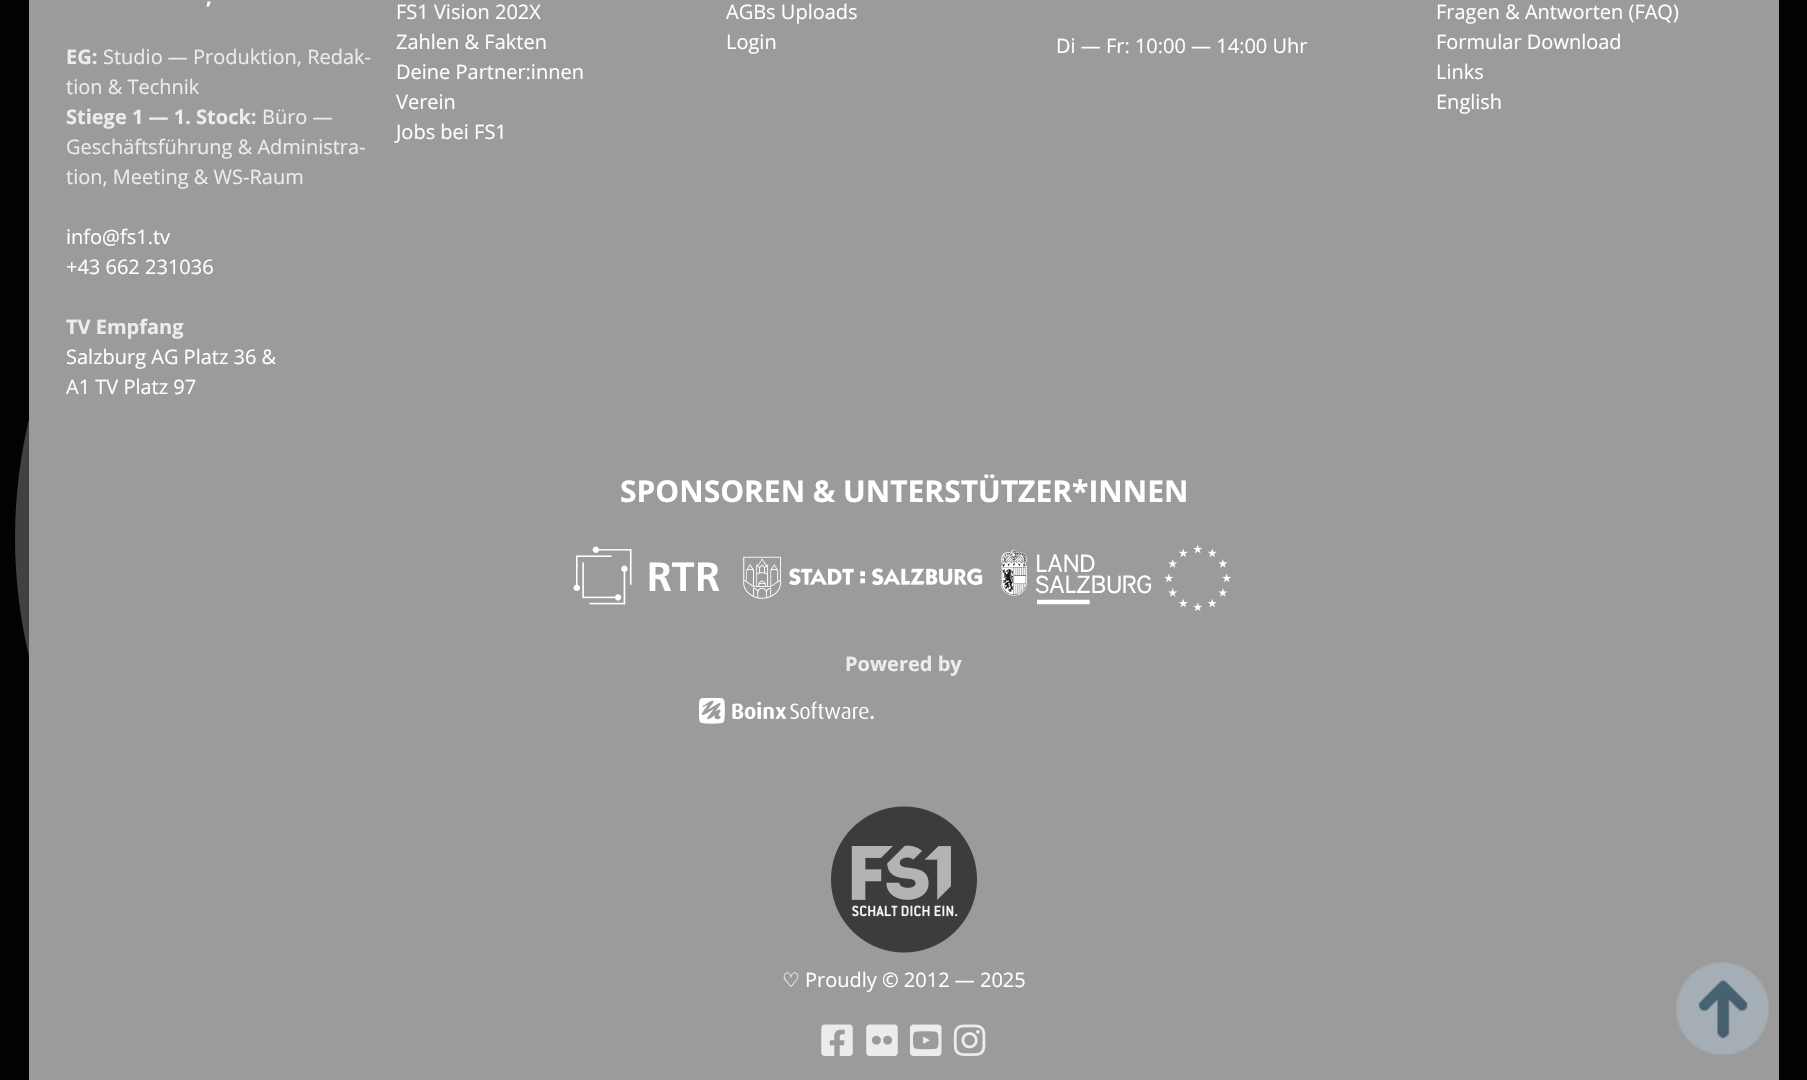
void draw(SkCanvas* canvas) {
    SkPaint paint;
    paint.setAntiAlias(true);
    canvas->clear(0xFF020202);
    canvas->drawImageRect(SkImages::DeferredFromEncodedData(SkData::MakeFromFileName("img1.png")), SkRect::MakeXYWH(15, 419, 14, 238), SkSamplingOptions());
    paint.setColor(0xFF9B9B9B);
    canvas->drawRect(SkRect::MakeXYWH(29, 0, 1750, 1080), paint);
    SkFont font1(fontMgr->matchFamilyStyle("Open Sans", SkFontStyle::Bold()), 20);
    font1.setSubpixel(true);
    paint.setColor(0xFFFFFFFF);
    canvas->drawString(",", 206, 4, font1, paint);
    paint.setColor(0xFFECECEC);
    canvas->drawString("EG:", 66, 64, font1, paint);
    SkFont font2(fontMgr->matchFamilyStyle("Open Sans", SkFontStyle::Normal()), 20);
    font2.setSubpixel(true);
    canvas->drawString("Studio — Produktion, Redak-", 103, 64, font2, paint);
    canvas->drawString("tion & Technik", 66, 94, font2, paint);
    canvas->drawString("Stiege 1 — 1. Stock:", 66, 124, font1, paint);
    canvas->drawString("Büro —", 262, 124, font2, paint);
    canvas->drawString("Geschäftsführung & Administra-", 66, 154, font2, paint);
    canvas->drawString("tion, Meeting & WS-Raum", 66, 184, font2, paint);
    paint.setColor(0xFFFFFFFF);
    canvas->drawString("info@fs1.tv", 66, 244, font2, paint);
    canvas->drawString("+43 662 231036", 66, 274, font2, paint);
    paint.setColor(0xFFECECEC);
    canvas->drawString("TV Empfang", 66, 334, font1, paint);
    paint.setColor(0xFFFFFFFF);
    canvas->drawString("Salzburg AG Platz 36 &", 66, 364, font2, paint);
    canvas->drawString("A1 TV Platz 97", 66, 394, font2, paint);
    canvas->drawString("FS1 Vision 202X", 396, 19, font2, paint);
    canvas->drawString("Zahlen & Fakten", 396, 49, font2, paint);
    canvas->drawString("Deine Partner:innen", 396, 79, font2, paint);
    canvas->drawString("Verein", 396, 109, font2, paint);
    canvas->drawString("Jobs bei FS1", 396, 139, font2, paint);
    canvas->drawString("AGBs Uploads", 726, 19, font2, paint);
    canvas->drawString("Login", 726, 49, font2, paint);
    canvas->drawString("Di — Fr: 10:00 — 14:00 Uhr", 1056, 53, font2, paint);
    canvas->drawString("Fragen & Antworten (FAQ)", 1436, 19, font2, paint);
    canvas->drawString("Formular Download", 1436, 49, font2, paint);
    canvas->drawString("Links", 1436, 79, font2, paint);
    canvas->drawString("English", 1436, 109, font2, paint);
    SkFont font3(fontMgr->matchFamilyStyle("Open Sans", SkFontStyle::Bold()), 30);
    font3.setSubpixel(true);
    canvas->drawString("SPONSOREN & UNTERSTÜTZER*INNEN", 620, 502, font3, paint);
    canvas->drawImageRect(SkImages::DeferredFromEncodedData(SkData::MakeFromFileName("img2.png")), SkRect::MakeXYWH(573, 546, 147, 59), SkSamplingOptions());
    canvas->drawImageRect(SkImages::DeferredFromEncodedData(SkData::MakeFromFileName("img3.png")), SkRect::MakeXYWH(743, 556, 240, 43), SkSamplingOptions());
    canvas->drawImageRect(SkImages::DeferredFromEncodedData(SkData::MakeFromFileName("img4.png")), SkRect::MakeXYWH(1001, 549, 150, 56), SkSamplingOptions());
    canvas->drawImageRect(SkImages::DeferredFromEncodedData(SkData::MakeFromFileName("img5.png")), SkRect::MakeXYWH(1164, 544, 67, 67), SkSamplingOptions());
    paint.setColor(0xFFECECEC);
    canvas->drawString("Powered by", 845, 671, font1, paint);
    canvas->drawImageRect(SkImages::DeferredFromEncodedData(SkData::MakeFromFileName("img6.png")), SkRect::MakeXYWH(699, 698, 175, 26), SkSamplingOptions());
    canvas->drawImageRect(SkImages::DeferredFromEncodedData(SkData::MakeFromFileName("img7.png")), SkRect::MakeXYWH(831, 806, 146, 147), SkSamplingOptions());
    SkFont font4(fontMgr->matchFamilyStyle("DejaVu Sans", SkFontStyle::Normal()), 20);
    font4.setSubpixel(true);
    paint.setColor(0xFFFFFFFF);
    canvas->drawString("♡", 782, 987, font4, paint);
    canvas->drawString("Proudly © 2012 — 2025", 805, 987, font2, paint);
    canvas->drawImageRect(SkImages::DeferredFromEncodedData(SkData::MakeFromFileName("img8.png")), SkRect::MakeXYWH(821, 1024, 32, 32), SkSamplingOptions());
    canvas->drawImageRect(SkImages::DeferredFromEncodedData(SkData::MakeFromFileName("img9.png")), SkRect::MakeXYWH(866, 1024, 32, 32), SkSamplingOptions());
    canvas->drawImageRect(SkImages::DeferredFromEncodedData(SkData::MakeFromFileName("img10.png")), SkRect::MakeXYWH(910, 1024, 32, 32), SkSamplingOptions());
    canvas->drawImageRect(SkImages::DeferredFromEncodedData(SkData::MakeFromFileName("img11.png")), SkRect::MakeXYWH(953, 1024, 33, 32), SkSamplingOptions());
    canvas->drawImageRect(SkImages::DeferredFromEncodedData(SkData::MakeFromFileName("img12.png")), SkRect::MakeXYWH(1676, 962, 93, 93), SkSamplingOptions());
}
